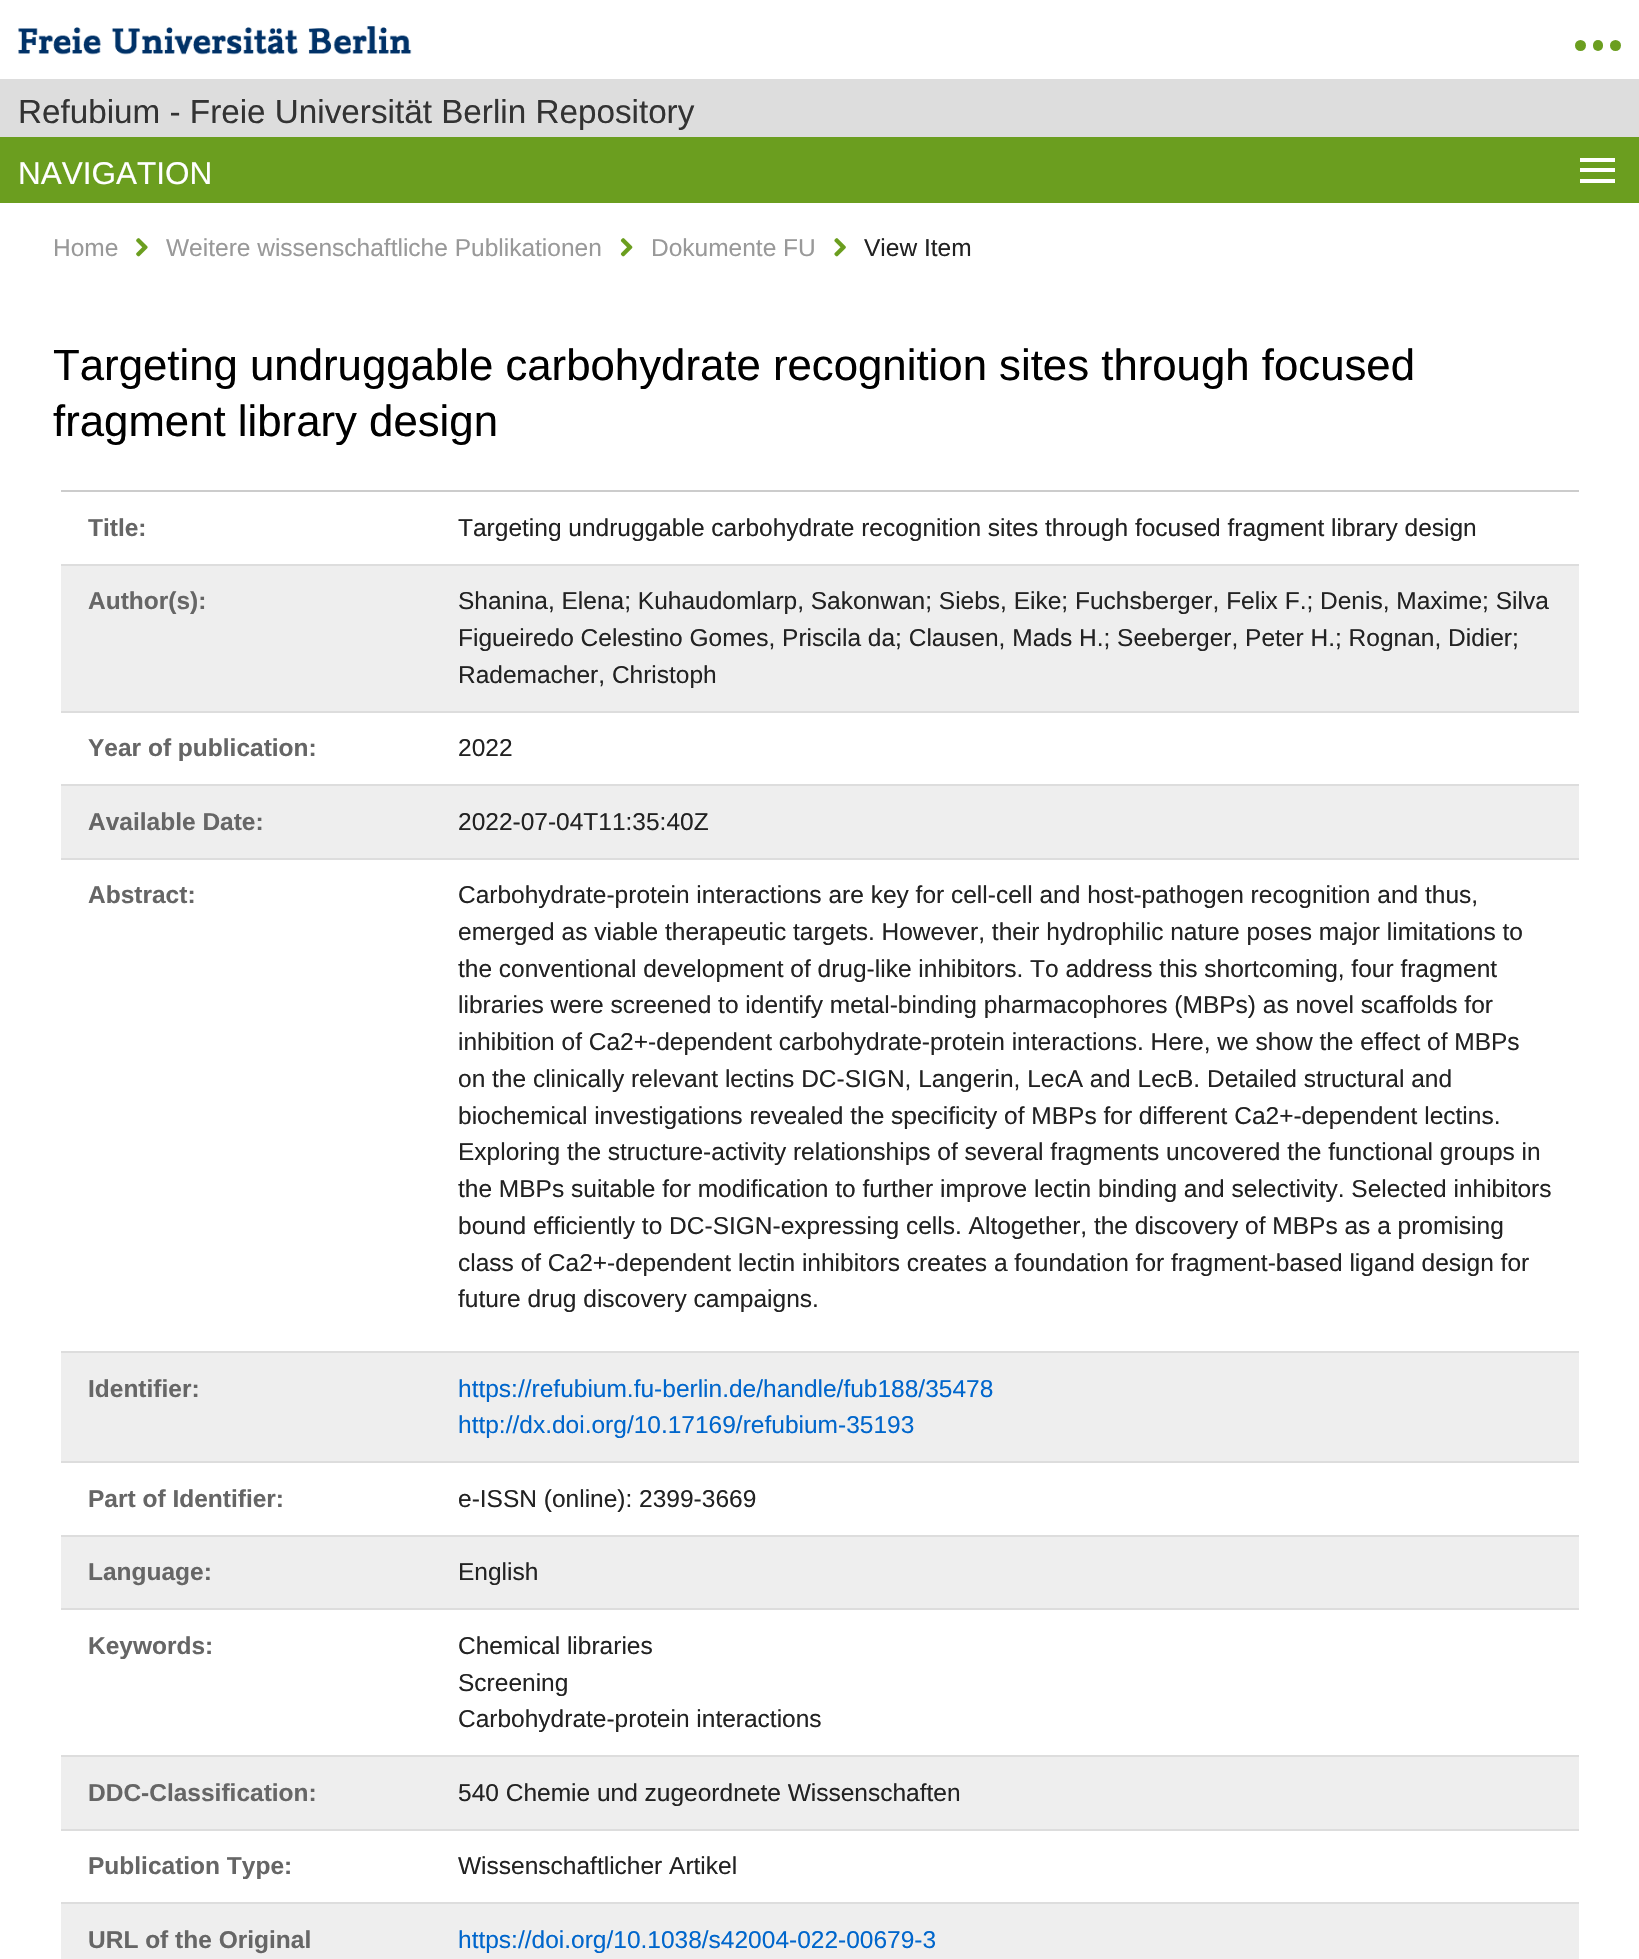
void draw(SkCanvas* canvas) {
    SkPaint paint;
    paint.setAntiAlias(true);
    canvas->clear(0xFFFFFFFF);
    canvas->drawImageRect(SkImages::DeferredFromEncodedData(SkData::MakeFromFileName("img1.png")), SkRect::MakeXYWH(18, 26, 394, 29), SkSamplingOptions());
    paint.setColor(0xFF6B9E1F);
    canvas->drawCircle(1580.5f, 45.5f, 5.5f, paint);
    canvas->drawRoundRect(SkRect::MakeXYWH(1593, 40, 10, 11), 5, 5, paint);
    canvas->drawCircle(1615.5f, 45.5f, 5.5f, paint);
    paint.setColor(0xFFDDDDDD);
    canvas->drawRect(SkRect::MakeXYWH(0, 79, 1639, 58), paint);
    SkFont font1(fontMgr->matchFamilyStyle("Liberation Sans", SkFontStyle::Normal()), 33.25f);
    font1.setSubpixel(true);
    paint.setColor(0xFF333333);
    canvas->drawString("Refubium - Freie Universität Berlin Repository", 18, 123, font1, paint);
    paint.setColor(0xFF6B9E1F);
    canvas->drawRect(SkRect::MakeXYWH(0, 137, 1639, 66), paint);
    SkFont font2(fontMgr->matchFamilyStyle("Liberation Sans", SkFontStyle::Normal()), 31.5f);
    font2.setSubpixel(true);
    paint.setColor(0xFFFFFFFF);
    canvas->drawString("NAVIGATION", 18, 184, font2, paint);
    canvas->drawRect(SkRect::MakeXYWH(1580, 158, 35, 4), paint);
    canvas->drawRect(SkRect::MakeXYWH(1580, 168, 35, 4), paint);
    canvas->drawRect(SkRect::MakeXYWH(1580, 179, 35, 4), paint);
    SkFont font3(fontMgr->matchFamilyStyle("Liberation Sans", SkFontStyle::Normal()), 24.5f);
    font3.setSubpixel(true);
    paint.setColor(0xFF999999);
    canvas->drawString("Home", 53, 256, font3, paint);
    canvas->drawImageRect(SkImages::DeferredFromEncodedData(SkData::MakeFromFileName("img2.png")), SkRect::MakeXYWH(136, 238, 12, 19), SkSamplingOptions());
    canvas->drawString("Weitere wissenschaftliche Publikationen", 166, 256, font3, paint);
    canvas->drawImageRect(SkImages::DeferredFromEncodedData(SkData::MakeFromFileName("img3.png")), SkRect::MakeXYWH(620, 238, 13, 19), SkSamplingOptions());
    canvas->drawString("Dokumente FU", 651, 256, font3, paint);
    canvas->drawImageRect(SkImages::DeferredFromEncodedData(SkData::MakeFromFileName("img4.png")), SkRect::MakeXYWH(834, 238, 12, 19), SkSamplingOptions());
    paint.setColor(0xFF222222);
    canvas->drawString("View Item", 864, 256, font3, paint);
    SkFont font4(fontMgr->matchFamilyStyle("Liberation Sans", SkFontStyle::Normal()), 43.75f);
    font4.setSubpixel(true);
    paint.setColor(0xFF000000);
    canvas->drawString("Targeting undruggable carbohydrate recognition sites through focused", 53, 380, font4, paint);
    canvas->drawString("fragment library design", 53, 436, font4, paint);
    paint.setColor(0xFFCCCCCC);
    canvas->drawRect(SkRect::MakeXYWH(61, 490, 1518, 2), paint);
    SkFont font5(fontMgr->matchFamilyStyle("Liberation Sans", SkFontStyle::Bold()), 24.5f);
    font5.setSubpixel(true);
    paint.setColor(0xFF666666);
    canvas->drawString("Title:", 88, 536, font5, paint);
    paint.setColor(0xFF222222);
    canvas->drawString("Targeting undruggable carbohydrate recognition sites through focused fragment library design", 458, 536, font3, paint);
    paint.setColor(0xFFEEEEEE);
    canvas->drawRect(SkRect::MakeXYWH(61, 566, 1518, 145), paint);
    paint.setColor(0xFFDDDDDD);
    canvas->drawRect(SkRect::MakeXYWH(61, 564, 1518, 2), paint);
    paint.setColor(0xFF666666);
    canvas->drawString("Author(s):", 88, 609, font5, paint);
    paint.setColor(0xFF222222);
    canvas->drawString("Shanina, Elena; Kuhaudomlarp, Sakonwan; Siebs, Eike; Fuchsberger, Felix F.; Denis, Maxime; Silva", 458, 609, font3, paint);
    canvas->drawString("Figueiredo Celestino Gomes, Priscila da; Clausen, Mads H.; Seeberger, Peter H.; Rognan, Didier;", 458, 646, font3, paint);
    canvas->drawString("Rademacher, Christoph", 458, 683, font3, paint);
    paint.setColor(0xFFDDDDDD);
    canvas->drawRect(SkRect::MakeXYWH(61, 711, 1518, 2), paint);
    paint.setColor(0xFF666666);
    canvas->drawString("Year of publication:", 88, 756, font5, paint);
    paint.setColor(0xFF222222);
    canvas->drawString("2022", 458, 756, font3, paint);
    paint.setColor(0xFFEEEEEE);
    canvas->drawRect(SkRect::MakeXYWH(61, 786, 1518, 72), paint);
    paint.setColor(0xFFDDDDDD);
    canvas->drawRect(SkRect::MakeXYWH(61, 784, 1518, 2), paint);
    paint.setColor(0xFF666666);
    canvas->drawString("Available Date:", 88, 830, font5, paint);
    paint.setColor(0xFF222222);
    canvas->drawString("2022-07-04T11:35:40Z", 458, 830, font3, paint);
    paint.setColor(0xFFDDDDDD);
    canvas->drawRect(SkRect::MakeXYWH(61, 858, 1518, 2), paint);
    paint.setColor(0xFF666666);
    canvas->drawString("Abstract:", 88, 903, font5, paint);
    paint.setColor(0xFF222222);
    canvas->drawString("Carbohydrate-protein interactions are key for cell-cell and host-pathogen recognition and thus,", 458, 903, font3, paint);
    canvas->drawString("emerged as viable therapeutic targets. However, their hydrophilic nature poses major limitations to", 458, 940, font3, paint);
    canvas->drawString("the conventional development of drug-like inhibitors. To address this shortcoming, four fragment", 458, 977, font3, paint);
    canvas->drawString("libraries were screened to identify metal-binding pharmacophores (MBPs) as novel scaffolds for", 458, 1013, font3, paint);
    canvas->drawString("inhibition of Ca2+-dependent carbohydrate-protein interactions. Here, we show the effect of MBPs", 458, 1050, font3, paint);
    canvas->drawString("on the clinically relevant lectins DC-SIGN, Langerin, LecA and LecB. Detailed structural and", 458, 1087, font3, paint);
    canvas->drawString("biochemical investigations revealed the specificity of MBPs for different Ca2+-dependent lectins.", 458, 1124, font3, paint);
    canvas->drawString("Exploring the structure-activity relationships of several fragments uncovered the functional groups in", 458, 1160, font3, paint);
    canvas->drawString("the MBPs suitable for modification to further improve lectin binding and selectivity. Selected inhibitors", 458, 1197, font3, paint);
    canvas->drawString("bound efficiently to DC-SIGN-expressing cells. Altogether, the discovery of MBPs as a promising", 458, 1234, font3, paint);
    canvas->drawString("class of Ca2+-dependent lectin inhibitors creates a foundation for fragment-based ligand design for", 458, 1271, font3, paint);
    canvas->drawString("future drug discovery campaigns.", 458, 1307, font3, paint);
    paint.setColor(0xFFEEEEEE);
    canvas->drawRect(SkRect::MakeXYWH(61, 1353, 1518, 108), paint);
    paint.setColor(0xFFDDDDDD);
    canvas->drawRect(SkRect::MakeXYWH(61, 1351, 1518, 2), paint);
    paint.setColor(0xFF666666);
    canvas->drawString("Identifier:", 88, 1397, font5, paint);
    paint.setColor(0xFF0066CC);
    canvas->drawString("https://refubium.fu-berlin.de/handle/fub188/35478", 458, 1397, font3, paint);
    canvas->drawString("http://dx.doi.org/10.17169/refubium-35193", 458, 1433, font3, paint);
    paint.setColor(0xFFDDDDDD);
    canvas->drawRect(SkRect::MakeXYWH(61, 1461, 1518, 2), paint);
    paint.setColor(0xFF666666);
    canvas->drawString("Part of Identifier:", 88, 1507, font5, paint);
    paint.setColor(0xFF222222);
    canvas->drawString("e-ISSN (online): 2399-3669", 458, 1507, font3, paint);
    paint.setColor(0xFFEEEEEE);
    canvas->drawRect(SkRect::MakeXYWH(61, 1537, 1518, 71), paint);
    paint.setColor(0xFFDDDDDD);
    canvas->drawRect(SkRect::MakeXYWH(61, 1535, 1518, 2), paint);
    paint.setColor(0xFF666666);
    canvas->drawString("Language:", 88, 1580, font5, paint);
    paint.setColor(0xFF222222);
    canvas->drawString("English", 458, 1580, font3, paint);
    paint.setColor(0xFFDDDDDD);
    canvas->drawRect(SkRect::MakeXYWH(61, 1608, 1518, 2), paint);
    paint.setColor(0xFF666666);
    canvas->drawString("Keywords:", 88, 1654, font5, paint);
    paint.setColor(0xFF222222);
    canvas->drawString("Chemical libraries", 458, 1654, font3, paint);
    canvas->drawString("Screening", 458, 1691, font3, paint);
    canvas->drawString("Carbohydrate-protein interactions", 458, 1727, font3, paint);
    paint.setColor(0xFFEEEEEE);
    canvas->drawRect(SkRect::MakeXYWH(61, 1757, 1518, 72), paint);
    paint.setColor(0xFFDDDDDD);
    canvas->drawRect(SkRect::MakeXYWH(61, 1755, 1518, 2), paint);
    paint.setColor(0xFF666666);
    canvas->drawString("DDC-Classification:", 88, 1801, font5, paint);
    paint.setColor(0xFF222222);
    canvas->drawString("540 Chemie und zugeordnete Wissenschaften", 458, 1801, font3, paint);
    paint.setColor(0xFFDDDDDD);
    canvas->drawRect(SkRect::MakeXYWH(61, 1829, 1518, 2), paint);
    paint.setColor(0xFF666666);
    canvas->drawString("Publication Type:", 88, 1874, font5, paint);
    paint.setColor(0xFF222222);
    canvas->drawString("Wissenschaftlicher Artikel", 458, 1874, font3, paint);
    paint.setColor(0xFFEEEEEE);
    canvas->drawRect(SkRect::MakeXYWH(61, 1904, 1518, 55), paint);
    paint.setColor(0xFFDDDDDD);
    canvas->drawRect(SkRect::MakeXYWH(61, 1902, 1518, 2), paint);
    paint.setColor(0xFF666666);
    canvas->drawString("URL of the Original", 88, 1948, font5, paint);
    paint.setColor(0xFF0066CC);
    canvas->drawString("https://doi.org/10.1038/s42004-022-00679-3", 458, 1948, font3, paint);
}
